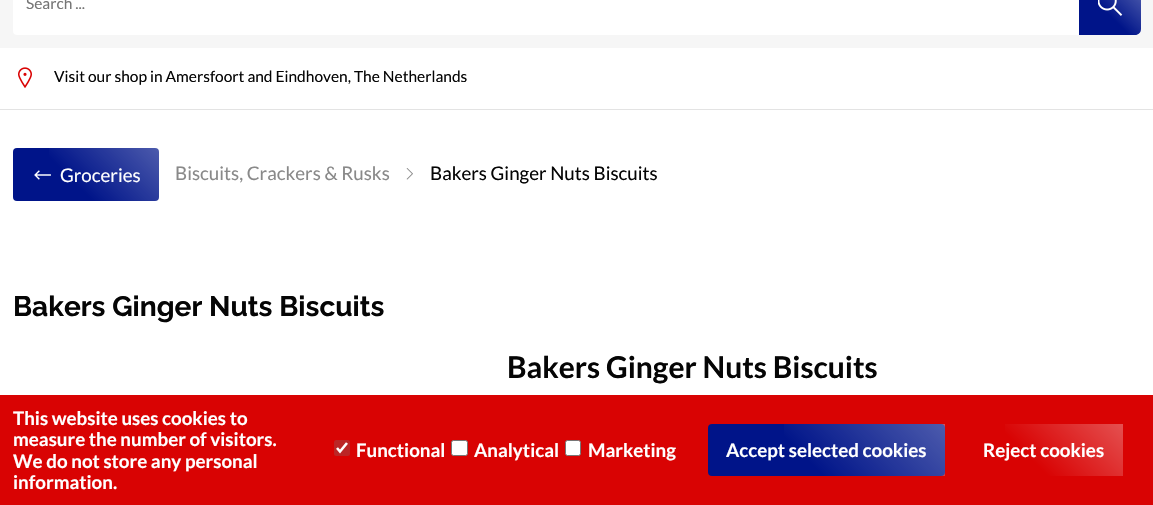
void draw(SkCanvas* canvas) {
    SkPaint paint;
    paint.setAntiAlias(true);
    canvas->clear(0xFFFFFFFF);
    paint.setColor(0xFFF6F6F6);
    canvas->drawRect(SkRect::MakeXYWH(0, 0, 1153, 48), paint);
    paint.setColor(0xFFFFFFFF);
    canvas->drawRoundRect(SkRect::MakeXYWH(13, -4, 1128, 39), 4, 4, paint);
    SkFont font1(fontMgr->matchFamilyStyle("Lato", SkFontStyle::Normal()), 15.5f);
    font1.setSubpixel(true);
    paint.setColor(0xFF757575);
    canvas->drawString("Search ...", 26, 9, font1, paint);
    paint.setColor(0xFF001489);
    canvas->drawPath(SkPathBuilder().moveTo(1079, -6).lineTo(1135, -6).cubicTo(1138.5f, -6, 1141, -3.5f, 1141, 0).lineTo(1141, 29).cubicTo(1141, 32.5f, 1138.5f, 35, 1135, 35).lineTo(1079, 35).close().detach(), paint);
    {
        const SkColor colors[] = {0x66FFFFFF, 0x00FFFFFF};
        const float stops[] = {0, 0.6f};
        const SkPoint ends[] = {{1141, -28}, {1079, 35}};
        paint.setShader(SkGradientShader::MakeLinear(ends, colors, stops, 2, SkTileMode::kClamp));
        paint.setAlpha(255);
    }
    canvas->drawRect(SkRect::MakeXYWH(1099, 0, 42, 35), paint);
    canvas->drawImageRect(SkImages::DeferredFromEncodedData(SkData::MakeFromFileName("img1.png")), SkRect::MakeXYWH(1098, 0, 25, 16), SkSamplingOptions());
    paint.setShader(nullptr);
    paint.setColor(0xFFE3E3E3);
    canvas->drawRect(SkRect::MakeXYWH(0, 109, 1153, 1), paint);
    canvas->drawImageRect(SkImages::DeferredFromEncodedData(SkData::MakeFromFileName("img2.png")), SkRect::MakeXYWH(18, 67, 14, 21), SkSamplingOptions());
    paint.setColor(0xFF050505);
    canvas->drawString("Visit our shop in Amersfoort and Eindhoven, The Netherlands", 54, 82, font1, paint);
    paint.setColor(0xFF001489);
    canvas->drawRoundRect(SkRect::MakeXYWH(13, 148, 146, 53), 4, 4, paint);
    canvas->drawImageRect(SkImages::DeferredFromEncodedData(SkData::MakeFromFileName("img3.png")), SkRect::MakeXYWH(34, 170, 17, 10), SkSamplingOptions());
    {
        const SkColor colors[] = {0x4DFFFFFF, 0x00FFFFFF};
        const float stops[] = {0, 0.6f};
        const SkPoint ends[] = {{136, 124}, {36, 224}};
        paint.setShader(SkGradientShader::MakeLinear(ends, colors, stops, 2, SkTileMode::kClamp));
        paint.setAlpha(255);
    }
    canvas->drawRect(SkRect::MakeXYWH(49, 148, 110, 53), paint);
    SkFont font2(fontMgr->matchFamilyStyle("Lato", SkFontStyle::Normal()), 18.75f);
    font2.setSubpixel(true);
    paint.setShader(nullptr);
    paint.setColor(0xFFFFFFFF);
    canvas->drawString("Groceries", 60, 182, font2, paint);
    paint.setColor(0xFF898989);
    canvas->drawString("Biscuits, Crackers & Rusks", 175, 180, font2, paint);
    canvas->drawImageRect(SkImages::DeferredFromEncodedData(SkData::MakeFromFileName("img4.png")), SkRect::MakeXYWH(406, 168, 7, 12), SkSamplingOptions());
    paint.setColor(0xFF050505);
    canvas->drawString("Bakers Ginger Nuts Biscuits", 430, 180, font2, paint);
    SkFont font3(fontMgr->matchFamilyStyle("Raleway", SkFontStyle::Bold()), 28.1f);
    font3.setSubpixel(true);
    canvas->drawString("Bakers Ginger Nuts Biscuits", 13, 316, font3, paint);
    SkFont font4(fontMgr->matchFamilyStyle("Lato", SkFontStyle::Bold()), 30);
    font4.setSubpixel(true);
    canvas->drawString("Bakers Ginger Nuts Biscuits", 507, 378, font4, paint);
    paint.setColor(0xFFD90303);
    canvas->drawRect(SkRect::MakeXYWH(0, 395, 1153, 110), paint);
    canvas->save();
    canvas->clipRect(SkRect::MakeXYWH(13, 408, 271, 85));
    SkFont font5(fontMgr->matchFamilyStyle("Lato", SkFontStyle::Bold()), 18.75f);
    font5.setSubpixel(true);
    paint.setColor(0xFFFFFFFF);
    canvas->drawString("This website uses cookies to", 13, 425, font5, paint);
    canvas->restore();
    canvas->drawString("measure the number of visitors.", 13, 446, font5, paint);
    canvas->drawString("We do not store any personal", 13, 468, font5, paint);
    canvas->drawString("information.", 13, 489, font5, paint);
    paint.setColor(0xFFBB2626);
    canvas->drawRoundRect(SkRect::MakeXYWH(334, 440, 16, 16), 2.5f, 2.5f, paint);
    paint.setStyle(SkPaint::kStroke_Style);
    paint.setStrokeWidth(2.6f);
    paint.setColor(0xFFFFFFFF);
    canvas->drawPath(SkPathBuilder().moveTo(337, 448).lineTo(340, 451.5f).lineTo(347, 443).detach(), paint);
    paint.setStyle(SkPaint::kFill_Style);
    canvas->drawString("Functional", 356, 457, font5, paint);
    canvas->drawRoundRect(SkRect::MakeXYWH(451.5f, 440.5f, 16, 15), 2, 2, paint);
    paint.setStyle(SkPaint::kStroke_Style);
    paint.setStrokeWidth(1);
    paint.setColor(0xFF767676);
    canvas->drawRoundRect(SkRect::MakeXYWH(451.5f, 440.5f, 16, 15), 2, 2, paint);
    paint.setStyle(SkPaint::kFill_Style);
    paint.setColor(0xFFFFFFFF);
    canvas->drawString("Analytical", 474, 457, font5, paint);
    canvas->drawRoundRect(SkRect::MakeXYWH(565.5f, 440.5f, 15, 15), 2, 2, paint);
    paint.setStyle(SkPaint::kStroke_Style);
    paint.setColor(0xFF767676);
    canvas->drawRoundRect(SkRect::MakeXYWH(565.5f, 440.5f, 15, 15), 2, 2, paint);
    paint.setStyle(SkPaint::kFill_Style);
    paint.setColor(0xFFFFFFFF);
    canvas->drawString("Marketing", 588, 457, font5, paint);
    paint.setColor(0xFF001489);
    canvas->drawRoundRect(SkRect::MakeXYWH(708, 424, 237, 52), 4, 4, paint);
    {
        const SkColor colors[] = {0x4DFFFFFF, 0x00FFFFFF};
        const float stops[] = {0, 0.6f};
        const SkPoint ends[] = {{899, 378}, {754, 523}};
        paint.setShader(SkGradientShader::MakeLinear(ends, colors, stops, 2, SkTileMode::kClamp));
        paint.setAlpha(255);
    }
    canvas->drawRect(SkRect::MakeXYWH(784, 424, 161, 52), paint);
    paint.setShader(nullptr);
    paint.setColor(0xFFFFFFFF);
    canvas->drawString("Accept selected cookies", 726, 457, font5, paint);
    {
        const SkColor colors[] = {0x4DFFFFFF, 0x00FFFFFF};
        const float stops[] = {0, 0.6f};
        const SkPoint ends[] = {{1096, 397}, {990, 503}};
        paint.setShader(SkGradientShader::MakeLinear(ends, colors, stops, 2, SkTileMode::kClamp));
        paint.setAlpha(255);
    }
    canvas->drawRect(SkRect::MakeXYWH(1005, 424, 118, 52), paint);
    paint.setShader(nullptr);
    paint.setColor(0xFFFFFFFF);
    canvas->drawString("Reject cookies", 983, 457, font5, paint);
}
